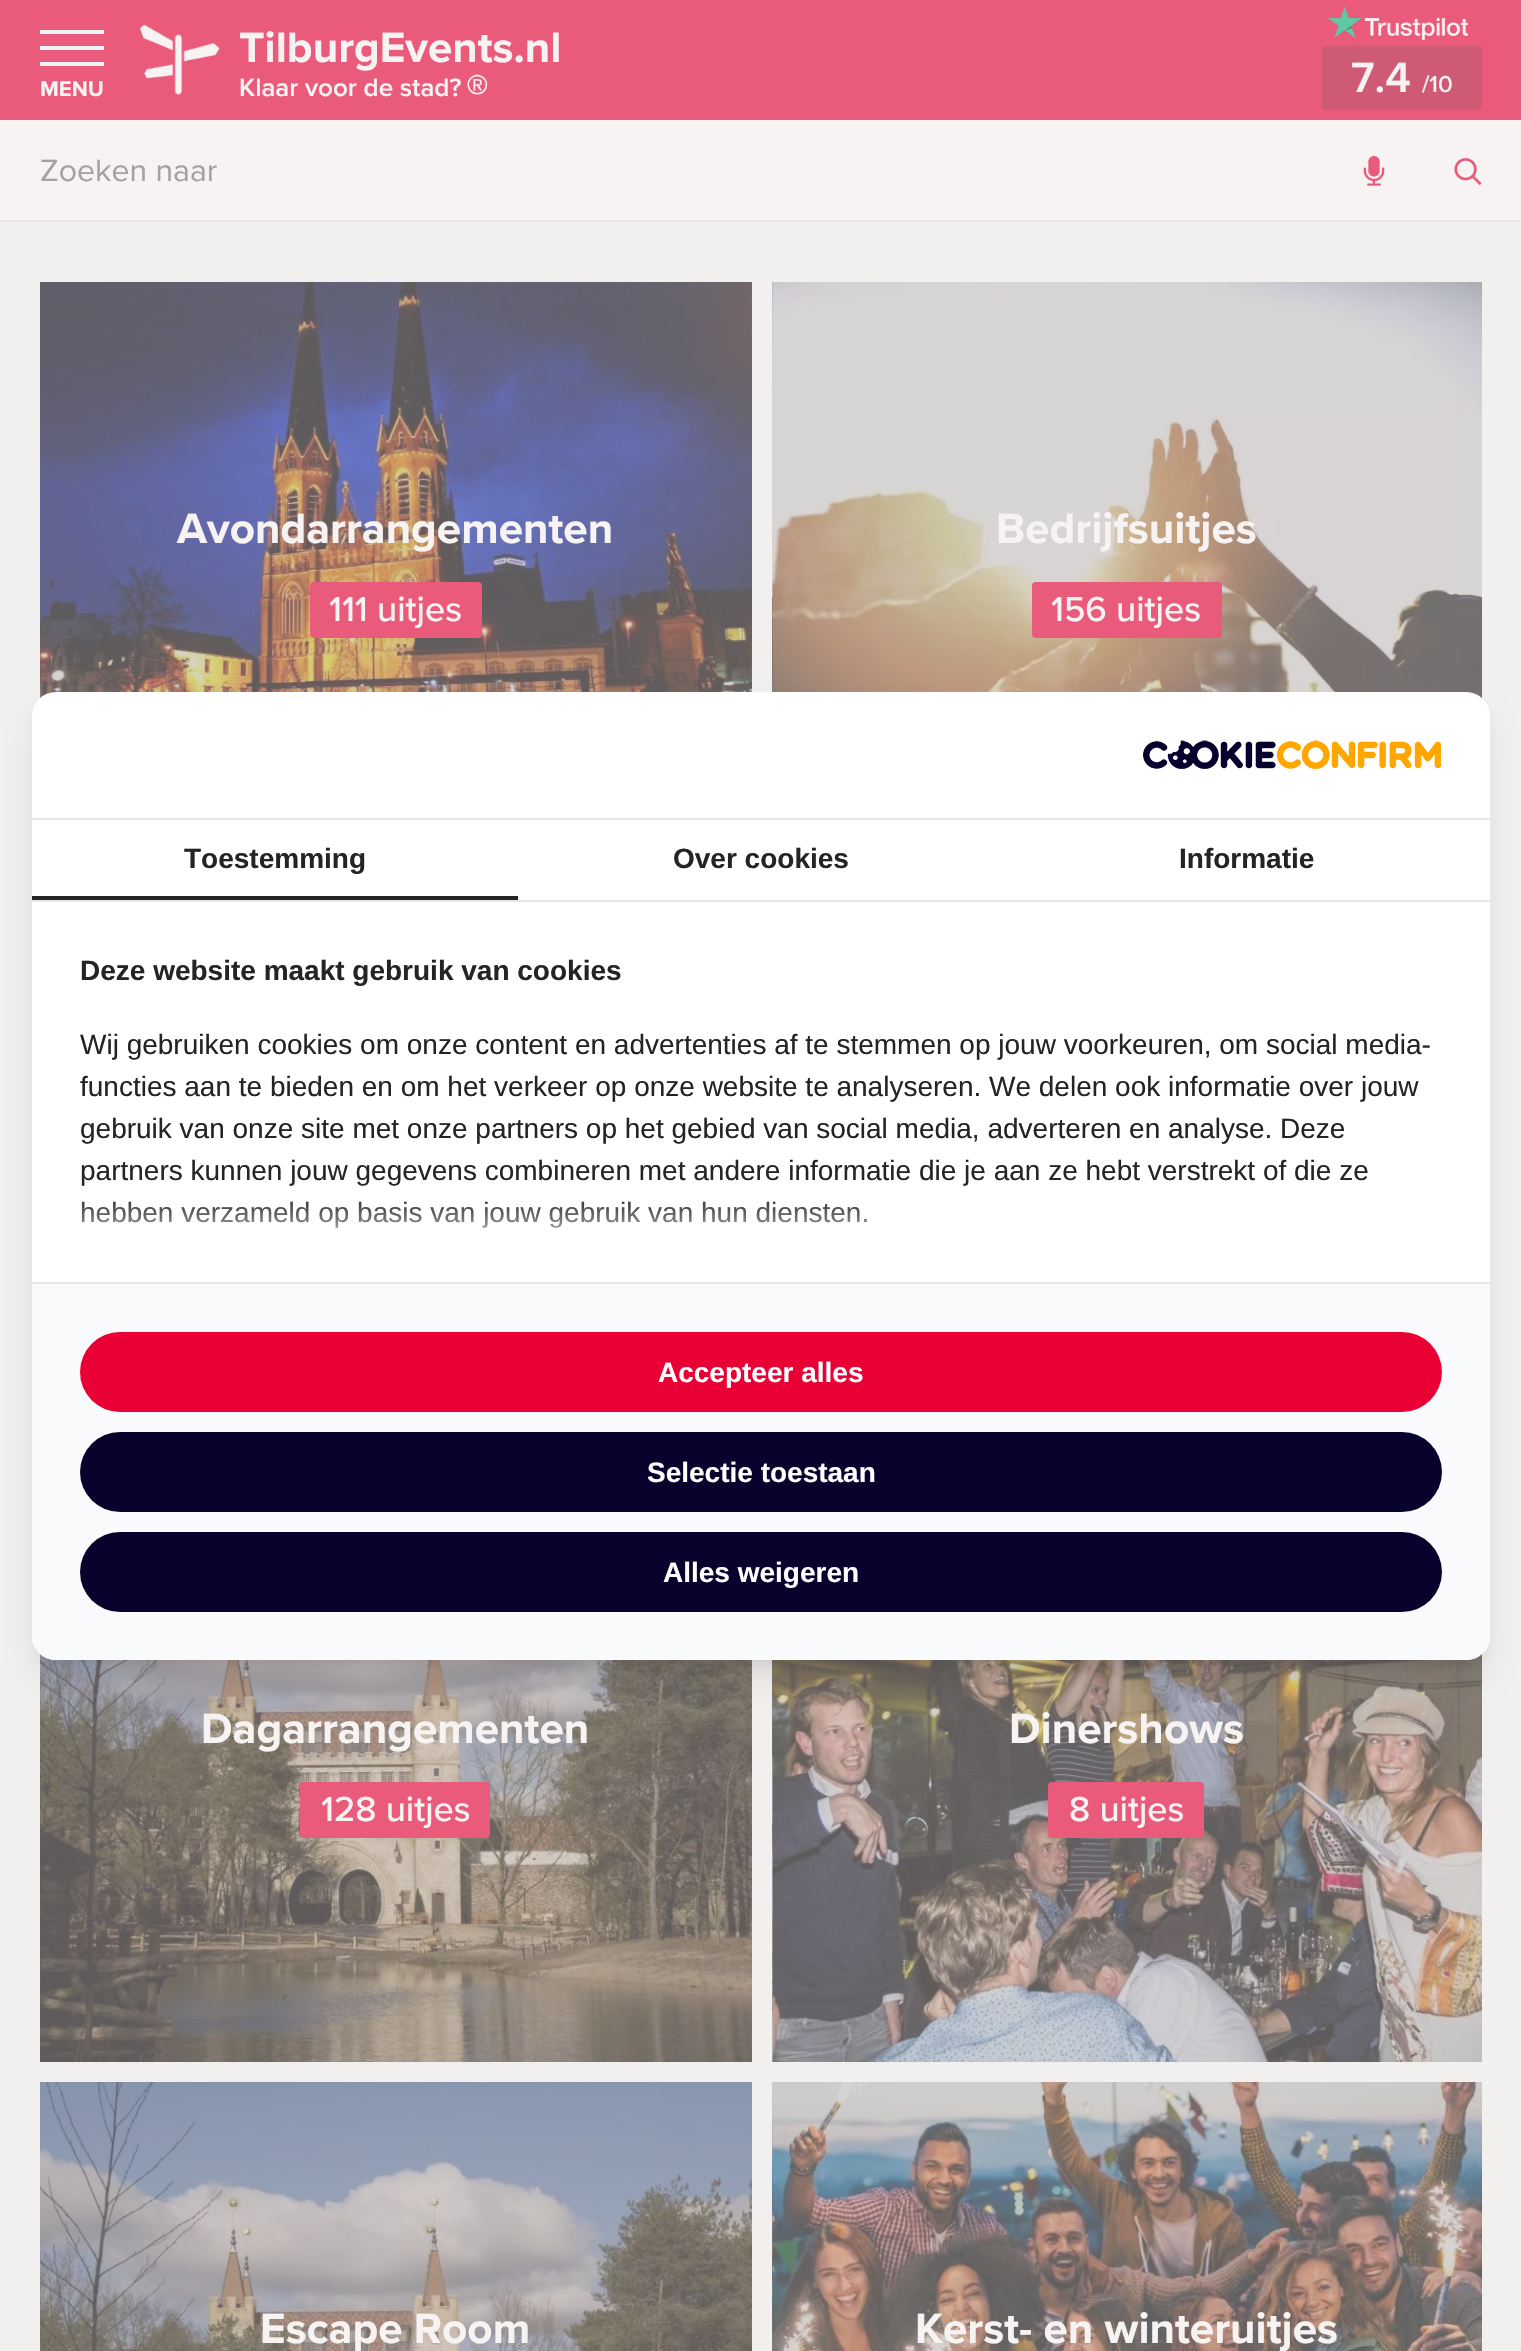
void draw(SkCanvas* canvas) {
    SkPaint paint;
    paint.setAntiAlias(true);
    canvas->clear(0xFFF7F3F3);
    paint.setColor(0xFFEA5A7A);
    canvas->drawRect(SkRect::MakeXYWH(0, 0, 1521, 120), paint);
    paint.setColor(0xFFF7F3F3);
    canvas->drawRect(SkRect::MakeXYWH(40, 30, 64, 4), paint);
    canvas->drawRect(SkRect::MakeXYWH(40, 46, 64, 4), paint);
    canvas->drawRect(SkRect::MakeXYWH(40, 62, 64, 4), paint);
    SkFont font1(fontMgr->matchFamilyStyle("Proxima Nova", SkFontStyle::Bold()), 22);
    font1.setSubpixel(true);
    canvas->drawString("MENU", 40, 96, font1, paint);
    canvas->drawImageRect(SkImages::DeferredFromEncodedData(SkData::MakeFromFileName("img1.png")), SkRect::MakeXYWH(140, 24, 80, 71), SkSamplingOptions());
    SkFont font2(fontMgr->matchFamilyStyle("Proxima Nova", SkFontStyle::Bold()), 44);
    font2.setSubpixel(true);
    canvas->drawString("TilburgEvents.nl", 239, 62, font2, paint);
    SkFont font3(fontMgr->matchFamilyStyle("Proxima Nova", SkFontStyle(600, SkFontStyle::kNormal_Width, SkFontStyle::kUpright_Slant)), 26);
    font3.setSubpixel(true);
    canvas->drawString("Klaar voor de stad?", 239, 96, font3, paint);
    SkFont font4(fontMgr->matchFamilyStyle("Proxima Nova", SkFontStyle(600, SkFontStyle::kNormal_Width, SkFontStyle::kUpright_Slant)), 46);
    font4.setSubpixel(true);
    canvas->drawString("®", 466, 106, font4, paint);
    canvas->drawImageRect(SkImages::DeferredFromEncodedData(SkData::MakeFromFileName("img2.png")), SkRect::MakeXYWH(1328, 6, 140, 34), SkSamplingOptions());
    paint.setColor(0xFFCE5A74);
    canvas->drawRoundRect(SkRect::MakeXYWH(1322, 46, 160, 64), 4, 4, paint);
    SkFont font5(fontMgr->matchFamilyStyle("Proxima Nova", SkFontStyle(600, SkFontStyle::kNormal_Width, SkFontStyle::kUpright_Slant)), 44);
    font5.setSubpixel(true);
    paint.setColor(0xFFF7F3F3);
    canvas->drawString("7.4", 1351, 92, font5, paint);
    SkFont font6(fontMgr->matchFamilyStyle("Proxima Nova", SkFontStyle(500, SkFontStyle::kNormal_Width, SkFontStyle::kUpright_Slant)), 24);
    font6.setSubpixel(true);
    canvas->drawString("/10", 1422, 92, font6, paint);
    paint.setColor(0xFFEAE6E6);
    canvas->drawRect(SkRect::MakeXYWH(0, 220, 1521, 2), paint);
    SkFont font7(fontMgr->matchFamilyStyle("Proxima Nova", SkFontStyle::Normal()), 32);
    font7.setSubpixel(true);
    paint.setColor(0xFFA4A1A1);
    canvas->drawString("Zoeken naar", 40, 181, font7, paint);
    canvas->drawImageRect(SkImages::DeferredFromEncodedData(SkData::MakeFromFileName("img3.png")), SkRect::MakeXYWH(1363, 156, 22, 30), SkSamplingOptions());
    canvas->drawImageRect(SkImages::DeferredFromEncodedData(SkData::MakeFromFileName("img4.png")), SkRect::MakeXYWH(1454, 158, 28, 28), SkSamplingOptions());
    paint.setColor(0xFFF2EFEF);
    canvas->drawRect(SkRect::MakeXYWH(0, 222, 1521, 2129), paint);
    canvas->drawImageRect(SkImages::DeferredFromEncodedData(SkData::MakeFromFileName("img5.png")), SkRect::MakeXYWH(40, 282, 712, 417), SkSamplingOptions());
    paint.setColor(0xFFF7F3F3);
    canvas->drawString("Avondarrangementen", 177, 543, font2, paint);
    paint.setColor(0xFFEA5A7A);
    canvas->drawRoundRect(SkRect::MakeXYWH(310, 582, 172, 56), 4, 4, paint);
    SkFont font8(fontMgr->matchFamilyStyle("Proxima Nova", SkFontStyle(500, SkFontStyle::kNormal_Width, SkFontStyle::kUpright_Slant)), 36);
    font8.setSubpixel(true);
    paint.setColor(0xFFF7F3F3);
    canvas->drawString("111 uitjes", 329, 621, font8, paint);
    canvas->drawImageRect(SkImages::DeferredFromEncodedData(SkData::MakeFromFileName("img6.png")), SkRect::MakeXYWH(772, 282, 710, 417), SkSamplingOptions());
    canvas->drawString("Bedrijfsuitjes", 996, 543, font2, paint);
    paint.setColor(0xFFEA5A7A);
    canvas->drawRoundRect(SkRect::MakeXYWH(1032, 582, 190, 56), 4, 4, paint);
    paint.setColor(0xFFF7F3F3);
    canvas->drawString("156 uitjes", 1051, 621, font8, paint);
    canvas->drawImageRect(SkImages::DeferredFromEncodedData(SkData::MakeFromFileName("img7.png")), SkRect::MakeXYWH(40, 1653, 712, 409), SkSamplingOptions());
    canvas->drawString("Dagarrangementen", 201, 1743, font2, paint);
    paint.setColor(0xFFEA5A7A);
    canvas->drawRoundRect(SkRect::MakeXYWH(300, 1782, 190, 56), 4, 4, paint);
    paint.setColor(0xFFF7F3F3);
    canvas->drawString("128 uitjes", 321, 1821, font8, paint);
    canvas->drawImageRect(SkImages::DeferredFromEncodedData(SkData::MakeFromFileName("img8.png")), SkRect::MakeXYWH(772, 1653, 710, 409), SkSamplingOptions());
    canvas->drawString("Dinershows", 1009, 1743, font2, paint);
    paint.setColor(0xFFEA5A7A);
    canvas->drawRoundRect(SkRect::MakeXYWH(1048, 1782, 156, 56), 4, 4, paint);
    paint.setColor(0xFFF7F3F3);
    canvas->drawString("8 uitjes", 1069, 1821, font8, paint);
    canvas->drawImageRect(SkImages::DeferredFromEncodedData(SkData::MakeFromFileName("img9.png")), SkRect::MakeXYWH(40, 2082, 712, 269), SkSamplingOptions());
    canvas->drawString("Escape Room", 260, 2343, font2, paint);
    canvas->drawImageRect(SkImages::DeferredFromEncodedData(SkData::MakeFromFileName("img10.png")), SkRect::MakeXYWH(772, 2082, 710, 269), SkSamplingOptions());
    canvas->drawString("Kerst- en winteruitjes", 915, 2343, font2, paint);
    paint.setColor(0x1A000000);
    paint.setMaskFilter(SkMaskFilter::MakeBlur(kNormal_SkBlurStyle, 6));
    canvas->drawRoundRect(SkRect::MakeXYWH(40, 708, 1442, 952), 16, 16, paint);
    paint.setMaskFilter(nullptr);
    paint.setMaskFilter(SkMaskFilter::MakeBlur(kNormal_SkBlurStyle, 15));
    canvas->drawRoundRect(SkRect::MakeXYWH(38, 718, 1446, 956), 18, 18, paint);
    paint.setMaskFilter(nullptr);
    paint.setColor(0xFFFFFFFF);
    canvas->drawRoundRect(SkRect::MakeXYWH(32, 692, 1458, 968), 24, 24, paint);
    paint.setColor(0xFFE5E7EB);
    canvas->drawRect(SkRect::MakeXYWH(32, 818, 1458, 2), paint);
    canvas->drawImageRect(SkImages::DeferredFromEncodedData(SkData::MakeFromFileName("img11.png")), SkRect::MakeXYWH(1143, 740, 298, 29), SkSamplingOptions());
    canvas->drawRect(SkRect::MakeXYWH(32, 900, 1458, 2), paint);
    paint.setColor(0xFF242424);
    canvas->drawRect(SkRect::MakeXYWH(32, 896, 486, 4), paint);
    SkFont font9(fontMgr->matchFamilyStyle("Liberation Sans", SkFontStyle::Bold()), 28);
    font9.setSubpixel(true);
    canvas->drawString("Toestemming", 184, 868, font9, paint);
    canvas->drawString("Over cookies", 673, 868, font9, paint);
    canvas->drawString("Informatie", 1179, 868, font9, paint);
    canvas->drawString("Deze website maakt gebruik van cookies", 80, 980, font9, paint);
    SkFont font10(fontMgr->matchFamilyStyle("Liberation Sans", SkFontStyle::Normal()), 28);
    font10.setSubpixel(true);
    canvas->drawString("Wij gebruiken cookies om onze content en advertenties af te stemmen op jouw voorkeuren, om social media-", 80, 1054, font10, paint);
    canvas->drawString("functies aan te bieden en om het verkeer op onze website te analyseren. We delen ook informatie over jouw", 80, 1096, font10, paint);
    canvas->drawString("gebruik van onze site met onze partners op het gebied van social media, adverteren en analyse. Deze", 80, 1138, font10, paint);
    canvas->drawString("partners kunnen jouw gegevens combineren met andere informatie die je aan ze hebt verstrekt of die ze", 80, 1180, font10, paint);
    canvas->drawString("hebben verzameld op basis van jouw gebruik van hun diensten.", 80, 1222, font10, paint);
    canvas->save();
    canvas->clipPath(SkPathBuilder().moveTo(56, 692).lineTo(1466, 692).cubicTo(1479.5f, 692, 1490, 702.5f, 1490, 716).lineTo(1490, 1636).cubicTo(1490, 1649.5f, 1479.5f, 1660, 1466, 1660).lineTo(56, 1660).cubicTo(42.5f, 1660, 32, 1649.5f, 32, 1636).lineTo(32, 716).cubicTo(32, 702.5f, 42.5f, 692, 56, 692).close().detach(), true);
    paint.setColor(0xFFFFFFFF);
    paint.setMaskFilter(SkMaskFilter::MakeBlur(kNormal_SkBlurStyle, 20));
    canvas->drawRect(SkRect::MakeXYWH(16, 1226, 1490, 410), paint);
    paint.setMaskFilter(nullptr);
    canvas->restore();
    paint.setColor(0xFFF9FAFB);
    canvas->drawPath(SkPathBuilder().moveTo(32, 1282).lineTo(1490, 1282).lineTo(1490, 1636).cubicTo(1490, 1649.5f, 1479.5f, 1660, 1466, 1660).lineTo(56, 1660).cubicTo(42.5f, 1660, 32, 1649.5f, 32, 1636).close().detach(), paint);
    paint.setColor(0xFFE5E7EB);
    canvas->drawRect(SkRect::MakeXYWH(32, 1282, 1458, 2), paint);
    paint.setColor(0xFFE90034);
    canvas->drawRoundRect(SkRect::MakeXYWH(80, 1332, 1362, 80), 40, 40, paint);
    paint.setColor(0xFFFFFFFF);
    canvas->drawString("Accepteer alles", 658, 1382, font9, paint);
    paint.setColor(0xFF09022C);
    canvas->drawRoundRect(SkRect::MakeXYWH(80, 1432, 1362, 80), 40, 40, paint);
    paint.setColor(0xFFFFFFFF);
    canvas->drawString("Selectie toestaan", 647, 1482, font9, paint);
    paint.setColor(0xFF09022C);
    canvas->drawRoundRect(SkRect::MakeXYWH(80, 1532, 1362, 80), 40, 40, paint);
    paint.setColor(0xFFFFFFFF);
    canvas->drawString("Alles weigeren", 663, 1582, font9, paint);
}
